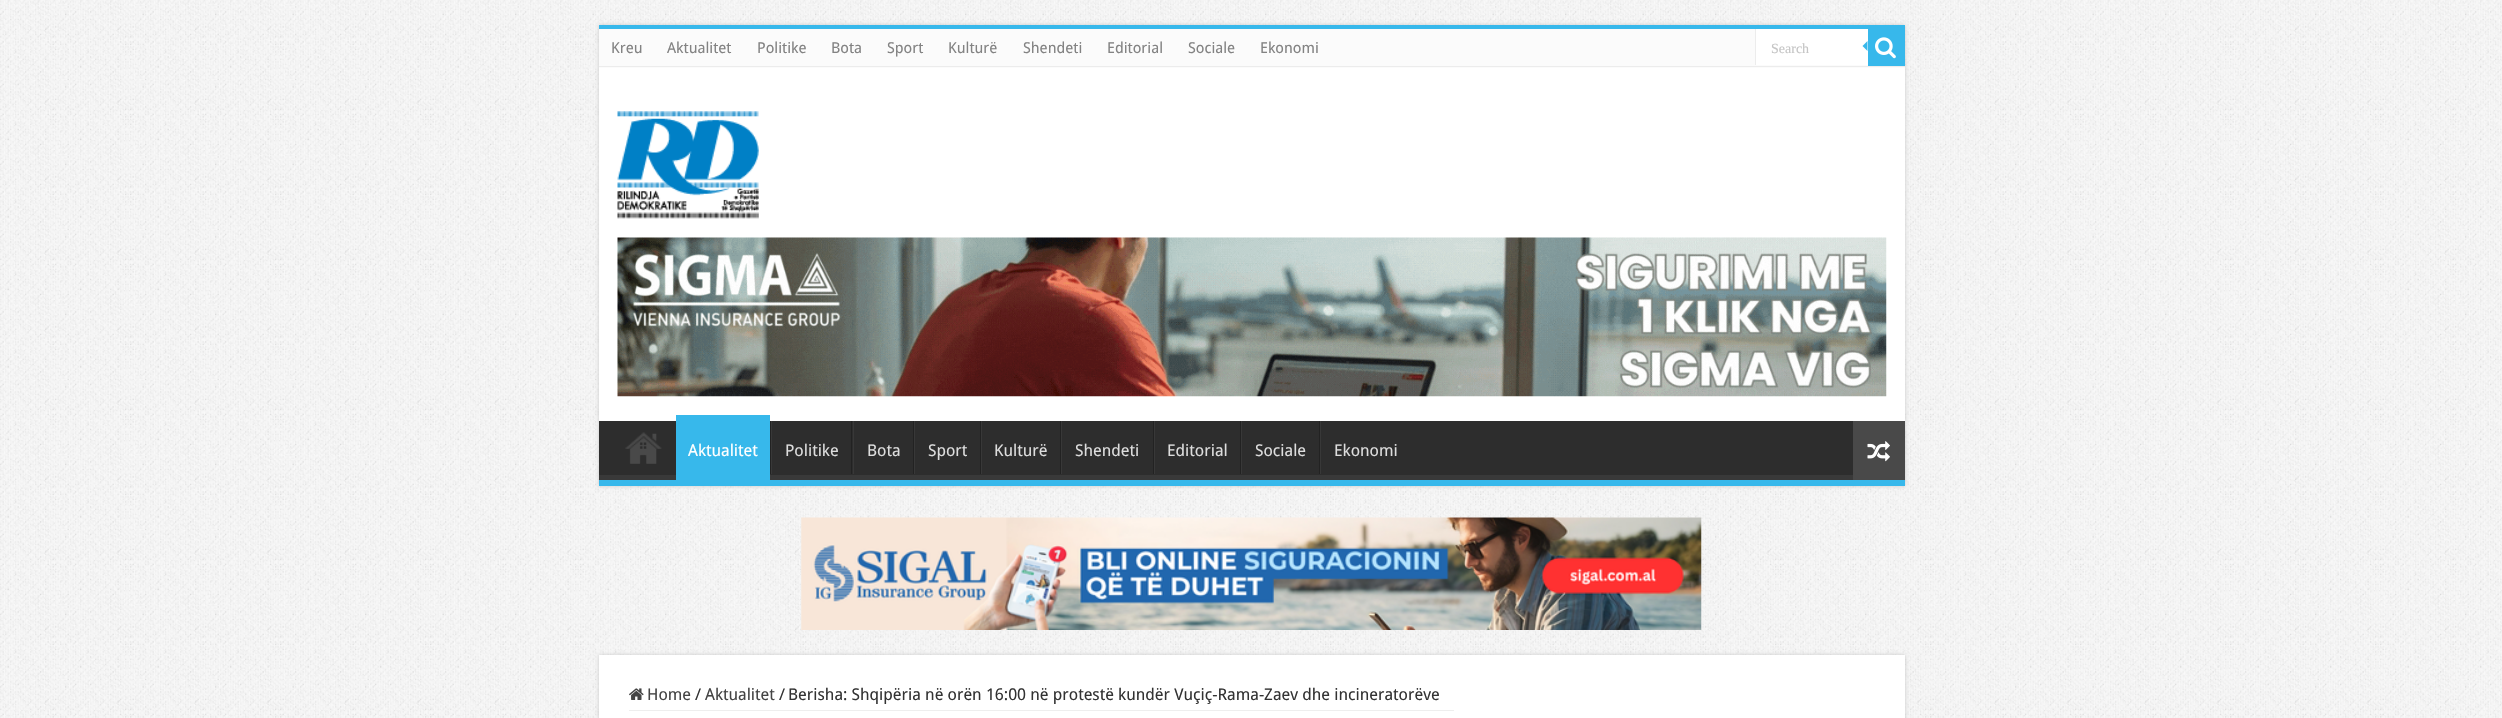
void draw(SkCanvas* canvas) {
    SkPaint paint;
    paint.setAntiAlias(true);
    canvas->clear(0xFFFFFFFF);
    canvas->drawImageRect(SkImages::DeferredFromEncodedData(SkData::MakeFromFileName("img1.png")), SkRect::MakeXYWH(0, 0, 2502, 718), SkSamplingOptions());
    paint.setColor(0xFFCACACA);
    paint.setMaskFilter(SkMaskFilter::MakeBlur(kNormal_SkBlurStyle, 2));
    canvas->drawRect(SkRect::MakeXYWH(599, 25, 1306, 461), paint);
    paint.setMaskFilter(nullptr);
    paint.setColor(0xFFFFFFFF);
    canvas->drawRect(SkRect::MakeXYWH(599, 68, 1306, 353), paint);
    paint.setColor(0xFF37B8EB);
    canvas->drawRect(SkRect::MakeXYWH(599, 25, 1306, 4), paint);
    paint.setColor(0xFFFBFBFB);
    canvas->drawRect(SkRect::MakeXYWH(599, 29, 1306, 39), paint);
    paint.setColor(0xFFECECEC);
    canvas->drawRect(SkRect::MakeXYWH(599, 66, 1306, 1), paint);
    SkFont font1(fontMgr->matchFamilyStyle("Droid Sans", SkFontStyle::Normal()), 15);
    font1.setSubpixel(true);
    paint.setColor(0xFF838383);
    canvas->drawString("Kreu", 611, 53, font1, paint);
    canvas->drawString("Aktualitet", 667, 53, font1, paint);
    canvas->drawString("Politike", 757, 53, font1, paint);
    canvas->drawString("Bota", 831, 53, font1, paint);
    canvas->drawString("Sport", 887, 53, font1, paint);
    canvas->drawString("Kulturë", 948, 53, font1, paint);
    canvas->drawString("Shendeti", 1023, 53, font1, paint);
    canvas->drawString("Editorial", 1107, 53, font1, paint);
    canvas->drawString("Sociale", 1188, 53, font1, paint);
    canvas->drawString("Ekonomi", 1260, 53, font1, paint);
    paint.setColor(0xFFFFFFFF);
    canvas->drawRect(SkRect::MakeXYWH(1756, 29, 112, 36), paint);
    paint.setColor(0xFFECECEC);
    canvas->drawRect(SkRect::MakeXYWH(1755, 29, 1, 36), paint);
    SkFont font2(fontMgr->matchFamilyStyle("Liberation Serif", SkFontStyle::Normal()), 14);
    font2.setSubpixel(true);
    paint.setColor(0xFFC5C5C5);
    canvas->drawString("Search", 1771, 53, font2, paint);
    paint.setColor(0xFF37B8EB);
    canvas->drawRect(SkRect::MakeXYWH(1868, 29, 37, 37), paint);
    canvas->drawImageRect(SkImages::DeferredFromEncodedData(SkData::MakeFromFileName("img2.png")), SkRect::MakeXYWH(1875, 37, 21, 22), SkSamplingOptions());
    canvas->drawPath(SkPathBuilder().moveTo(1867.5f, 41).lineTo(1867.5f, 51).lineTo(1862.5f, 46).close().detach(), paint);
    canvas->drawImageRect(SkImages::DeferredFromEncodedData(SkData::MakeFromFileName("img3.png")), SkRect::MakeXYWH(617, 111, 142, 108), SkSamplingOptions());
    canvas->drawImageRect(SkImages::DeferredFromEncodedData(SkData::MakeFromFileName("img4.png")), SkRect::MakeXYWH(617, 237, 1270, 160), SkSamplingOptions());
    paint.setColor(0xFF2D2D2D);
    canvas->drawRect(SkRect::MakeXYWH(599, 421, 1254, 54), paint);
    canvas->save();
    canvas->clipRect(SkRect::MakeXYWH(599, 421, 1306, 59));
    paint.setColor(0xFF393939);
    canvas->drawPath(SkPathBuilder(SkPathFillType::kEvenOdd).moveTo(475, 298).lineTo(2029, 298).lineTo(2029, 604).lineTo(475, 604).close().moveTo(598, 414).lineTo(1904, 414).cubicTo(1904, 414, 1905, 414, 1905, 415).lineTo(1905, 474).cubicTo(1905, 474, 1904, 475, 1904, 475).lineTo(598, 475).cubicTo(597, 475, 596, 474, 596, 474).lineTo(596, 415).cubicTo(596, 414, 597, 414, 598, 414).close().detach(), paint);
    canvas->restore();
    paint.setColor(0xFF37B8EB);
    canvas->drawRect(SkRect::MakeXYWH(599, 480, 1306, 6), paint);
    canvas->drawImageRect(SkImages::DeferredFromEncodedData(SkData::MakeFromFileName("img5.png")), SkRect::MakeXYWH(625, 432, 37, 32), SkSamplingOptions());
    canvas->drawRect(SkRect::MakeXYWH(676, 415, 94, 65), paint);
    SkFont font3(fontMgr->matchFamilyStyle("Droid Sans", SkFontStyle::Normal()), 16.25f);
    font3.setSubpixel(true);
    paint.setColor(0xFFFFFFFF);
    canvas->drawString("Aktualitet", 688, 456, font3, paint);
    paint.setColor(0xFF222222);
    canvas->drawRect(SkRect::MakeXYWH(770, 421, 1, 53), paint);
    paint.setColor(0xFF383838);
    canvas->drawRect(SkRect::MakeXYWH(771, 421, 1, 53), paint);
    paint.setColor(0xFFDDDDDD);
    canvas->drawString("Politike", 785, 456, font3, paint);
    paint.setColor(0xFF222222);
    canvas->drawRect(SkRect::MakeXYWH(851, 421, 1, 53), paint);
    paint.setColor(0xFF383838);
    canvas->drawRect(SkRect::MakeXYWH(853, 421, 1, 53), paint);
    paint.setColor(0xFFDDDDDD);
    canvas->drawString("Bota", 867, 456, font3, paint);
    paint.setColor(0xFF222222);
    canvas->drawRect(SkRect::MakeXYWH(913, 421, 1, 53), paint);
    paint.setColor(0xFF383838);
    canvas->drawRect(SkRect::MakeXYWH(914, 421, 1, 53), paint);
    paint.setColor(0xFFDDDDDD);
    canvas->drawString("Sport", 928, 456, font3, paint);
    paint.setColor(0xFF222222);
    canvas->drawRect(SkRect::MakeXYWH(980, 421, 1, 53), paint);
    paint.setColor(0xFF383838);
    canvas->drawRect(SkRect::MakeXYWH(981, 421, 1, 53), paint);
    paint.setColor(0xFFDDDDDD);
    canvas->drawString("Kulturë", 994, 456, font3, paint);
    paint.setColor(0xFF222222);
    canvas->drawRect(SkRect::MakeXYWH(1060, 421, 1, 53), paint);
    paint.setColor(0xFF383838);
    canvas->drawRect(SkRect::MakeXYWH(1061, 421, 1, 53), paint);
    paint.setColor(0xFFDDDDDD);
    canvas->drawString("Shendeti", 1075, 456, font3, paint);
    paint.setColor(0xFF222222);
    canvas->drawRect(SkRect::MakeXYWH(1153, 421, 1, 53), paint);
    paint.setColor(0xFF383838);
    canvas->drawRect(SkRect::MakeXYWH(1154, 421, 1, 53), paint);
    paint.setColor(0xFFDDDDDD);
    canvas->drawString("Editorial", 1167, 456, font3, paint);
    paint.setColor(0xFF222222);
    canvas->drawRect(SkRect::MakeXYWH(1240, 421, 1, 53), paint);
    paint.setColor(0xFF383838);
    canvas->drawRect(SkRect::MakeXYWH(1241, 421, 1, 53), paint);
    paint.setColor(0xFFDDDDDD);
    canvas->drawString("Sociale", 1255, 456, font3, paint);
    paint.setColor(0xFF222222);
    canvas->drawRect(SkRect::MakeXYWH(1319, 421, 1, 53), paint);
    paint.setColor(0xFF383838);
    canvas->drawRect(SkRect::MakeXYWH(1320, 421, 1, 53), paint);
    paint.setColor(0xFFDDDDDD);
    canvas->drawString("Ekonomi", 1334, 456, font3, paint);
    paint.setColor(0xFF494949);
    canvas->drawRect(SkRect::MakeXYWH(1853, 421, 52, 59), paint);
    canvas->drawImageRect(SkImages::DeferredFromEncodedData(SkData::MakeFromFileName("img6.png")), SkRect::MakeXYWH(1867, 441, 23, 21), SkSamplingOptions());
    canvas->drawImageRect(SkImages::DeferredFromEncodedData(SkData::MakeFromFileName("img7.png")), SkRect::MakeXYWH(801, 517, 901, 113), SkSamplingOptions());
    paint.setColor(0xFFCACACA);
    paint.setMaskFilter(SkMaskFilter::MakeBlur(kNormal_SkBlurStyle, 2));
    canvas->drawRect(SkRect::MakeXYWH(599, 655, 1306, 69), paint);
    paint.setMaskFilter(nullptr);
    paint.setColor(0xFFFFFFFF);
    canvas->drawRect(SkRect::MakeXYWH(599, 655, 1306, 63), paint);
    paint.setColor(0xFFEEEEEE);
    canvas->drawRect(SkRect::MakeXYWH(629, 710, 825, 1), paint);
    canvas->drawImageRect(SkImages::DeferredFromEncodedData(SkData::MakeFromFileName("img8.png")), SkRect::MakeXYWH(629, 688, 15, 12), SkSamplingOptions());
    paint.setColor(0xFF444444);
    canvas->drawString("Home", 647, 700, font3, paint);
    paint.setColor(0xFF333333);
    canvas->drawString("/", 695, 700, font3, paint);
    paint.setColor(0xFF444444);
    canvas->drawString("Aktualitet", 705, 700, font3, paint);
    paint.setColor(0xFF333333);
    canvas->drawString("/", 779, 700, font3, paint);
    canvas->drawString("Berisha: Shqipëria në orën 16:00 në protestë kundër Vuçiç-Rama-Zaev dhe incineratorëve", 788, 700, font3, paint);
}
